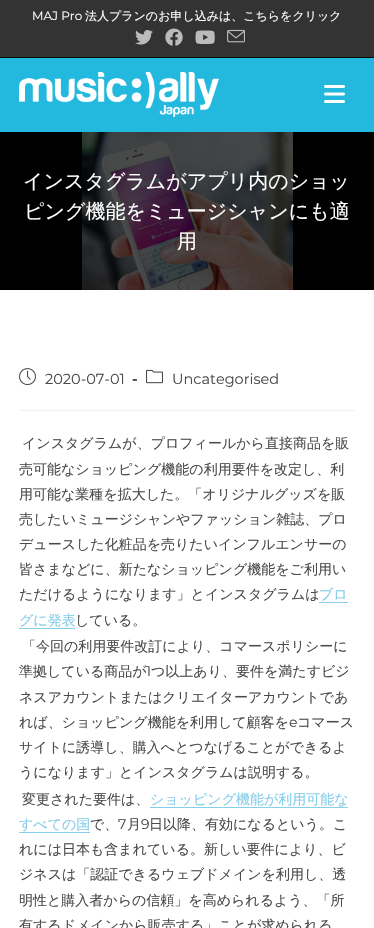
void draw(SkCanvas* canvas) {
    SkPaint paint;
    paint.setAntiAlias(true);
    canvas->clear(0xFFFFFFFF);
    paint.setColor(0xFF333333);
    canvas->drawRect(SkRect::MakeXYWH(0, 0, 374, 57), paint);
    paint.setColor(0xFF000000);
    canvas->drawRect(SkRect::MakeXYWH(0, 57, 374, 1), paint);
    SkFont font1(fontMgr->matchFamilyStyle("Montserrat", SkFontStyle::Normal()), 12);
    font1.setSubpixel(true);
    paint.setColor(0xFFFFFFFF);
    canvas->drawString("MAJ Pro", 32, 20, font1, paint);
    SkFont font2(fontMgr->matchFamilyStyle("WenQuanYi Zen Hei", SkFontStyle(500, SkFontStyle::kNormal_Width, SkFontStyle::kUpright_Slant)), 12);
    font2.setSubpixel(true);
    canvas->drawString("法人プランのお申し込みは、こちらをクリック", 85, 20, font2, paint);
    canvas->drawImageRect(SkImages::DeferredFromEncodedData(SkData::MakeFromFileName("img1.png")), SkRect::MakeXYWH(135, 30, 18, 15), SkSamplingOptions());
    canvas->drawImageRect(SkImages::DeferredFromEncodedData(SkData::MakeFromFileName("img2.png")), SkRect::MakeXYWH(165, 28, 18, 18), SkSamplingOptions());
    canvas->drawImageRect(SkImages::DeferredFromEncodedData(SkData::MakeFromFileName("img3.png")), SkRect::MakeXYWH(195, 30, 20, 14), SkSamplingOptions());
    canvas->drawImageRect(SkImages::DeferredFromEncodedData(SkData::MakeFromFileName("img4.png")), SkRect::MakeXYWH(227, 29, 18, 14), SkSamplingOptions());
    paint.setColor(0xFF23B8DD);
    canvas->drawRect(SkRect::MakeXYWH(0, 58, 374, 74), paint);
    canvas->drawImageRect(SkImages::DeferredFromEncodedData(SkData::MakeFromFileName("img5.png")), SkRect::MakeXYWH(19, 72, 200, 45), SkSamplingOptions());
    canvas->drawImageRect(SkImages::DeferredFromEncodedData(SkData::MakeFromFileName("img6.png")), SkRect::MakeXYWH(324, 85, 21, 18), SkSamplingOptions());
    paint.setColor(0xFF000000);
    canvas->drawRect(SkRect::MakeXYWH(0, 132, 374, 158), paint);
    canvas->drawImageRect(SkImages::DeferredFromEncodedData(SkData::MakeFromFileName("img7.png")), SkRect::MakeXYWH(82, 132, 211, 158), SkSamplingOptions());
    SkFont font3(fontMgr->matchFamilyStyle("WenQuanYi Zen Hei", SkFontStyle(500, SkFontStyle::kNormal_Width, SkFontStyle::kUpright_Slant)), 20);
    font3.setSubpixel(true);
    paint.setColor(0xFFFFFFFF);
    canvas->drawString("インスタグラムがアプリ内のショッ", 23, 188, font3, paint);
    canvas->drawString("ピング機能をミュージシャンにも適", 24, 218, font3, paint);
    canvas->drawString("用", 177, 248, font3, paint);
    paint.setColor(0xFFF1F1F1);
    canvas->drawRect(SkRect::MakeXYWH(19, 410, 336, 1), paint);
    canvas->drawImageRect(SkImages::DeferredFromEncodedData(SkData::MakeFromFileName("img8.png")), SkRect::MakeXYWH(19, 368, 17, 18), SkSamplingOptions());
    SkFont font4(fontMgr->matchFamilyStyle("Montserrat", SkFontStyle::Normal()), 14.5f);
    font4.setSubpixel(true);
    paint.setColor(0xFF4A4A4A);
    canvas->drawString("2020-07-01", 45, 384, font4, paint);
    SkFont font5(fontMgr->matchFamilyStyle("Montserrat", SkFontStyle::Bold()), 14.5f);
    font5.setSubpixel(true);
    canvas->drawString("-", 132, 384, font5, paint);
    canvas->drawImageRect(SkImages::DeferredFromEncodedData(SkData::MakeFromFileName("img9.png")), SkRect::MakeXYWH(146, 369, 17, 15), SkSamplingOptions());
    canvas->drawString("Uncategorised", 172, 384, font4, paint);
    SkFont font6(fontMgr->matchFamilyStyle("WenQuanYi Zen Hei", SkFontStyle(500, SkFontStyle::kNormal_Width, SkFontStyle::kUpright_Slant)), 14);
    font6.setSubpixel(true);
    canvas->drawString("インスタグラムが、プロフィールから直接商品を販", 22, 448, font6, paint);
    canvas->drawString("売可能なショッピング機能の利用要件を改定し、利", 19, 474, font6, paint);
    canvas->drawString("用可能な業種を拡大した。「オリジナルグッズを販", 19, 499, font6, paint);
    canvas->drawString("売したいミュージシャンやファッション雑誌、プロ", 19, 524, font6, paint);
    canvas->drawString("デュースした化粧品を売りたいインフルエンサーの", 19, 549, font6, paint);
    canvas->drawString("皆さまなどに、新たなショッピング機能をご利用い", 19, 574, font6, paint);
    canvas->drawString("ただけるようになります」とインスタグラムは", 19, 599, font6, paint);
    paint.setColor(0xFF87CEEB);
    canvas->drawString("ブロ", 319, 599, font6, paint);
    canvas->drawRect(SkRect::MakeXYWH(319, 602, 29, 1), paint);
    canvas->drawString("グに発表", 19, 625, font6, paint);
    canvas->drawRect(SkRect::MakeXYWH(19, 628, 56, 1), paint);
    paint.setColor(0xFF4A4A4A);
    canvas->drawString("している。", 75, 625, font6, paint);
    canvas->drawString("「今回の利用要件改訂により、コマースポリシーに", 22, 651, font6, paint);
    canvas->drawString("準拠している商品が", 19, 676, font6, paint);
    SkFont font7(fontMgr->matchFamilyStyle("Montserrat", SkFontStyle::Normal()), 14);
    font7.setSubpixel(true);
    canvas->drawString("1", 146, 676, font7, paint);
    canvas->drawString("つ以上あり、要件を満たすビジ", 151, 676, font6, paint);
    canvas->drawString("ネスアカウントまたはクリエイターアカウントであ", 19, 702, font6, paint);
    canvas->drawString("れば、ショッピング機能を利用して顧客を", 19, 727, font6, paint);
    canvas->drawString("e", 289, 727, font7, paint);
    canvas->drawString("コマース", 297, 727, font6, paint);
    canvas->drawString("サイトに誘導し、購入へとつなげることができるよ", 19, 752, font6, paint);
    canvas->drawString("うになります」とインスタグラムは説明する。", 19, 777, font6, paint);
    canvas->drawString("変更された要件は、", 22, 804, font6, paint);
    paint.setColor(0xFF87CEEB);
    canvas->drawString("ショッピング機能が利用可能な", 150, 804, font6, paint);
    canvas->drawRect(SkRect::MakeXYWH(150, 807, 198, 1), paint);
    canvas->drawString("すべての国", 19, 829, font6, paint);
    canvas->drawRect(SkRect::MakeXYWH(19, 832, 71, 1), paint);
    paint.setColor(0xFF4A4A4A);
    canvas->drawString("で、", 90, 829, font6, paint);
    canvas->drawString("7", 118, 829, font7, paint);
    canvas->drawString("月", 127, 829, font6, paint);
    canvas->drawString("9", 141, 829, font7, paint);
    canvas->drawString("日以降、有効になるという。こ", 149, 829, font6, paint);
    canvas->drawString("れには日本も含まれている。新しい要件により、ビ", 19, 854, font6, paint);
    canvas->drawString("ジネスは「認証できるウェブドメインを利用し、透", 19, 879, font6, paint);
    canvas->drawString("明性と購入者からの信頼」を高められるよう、「所", 19, 905, font6, paint);
    canvas->drawString("有するドメインから販売する」ことが求められる", 19, 930, font6, paint);
}
